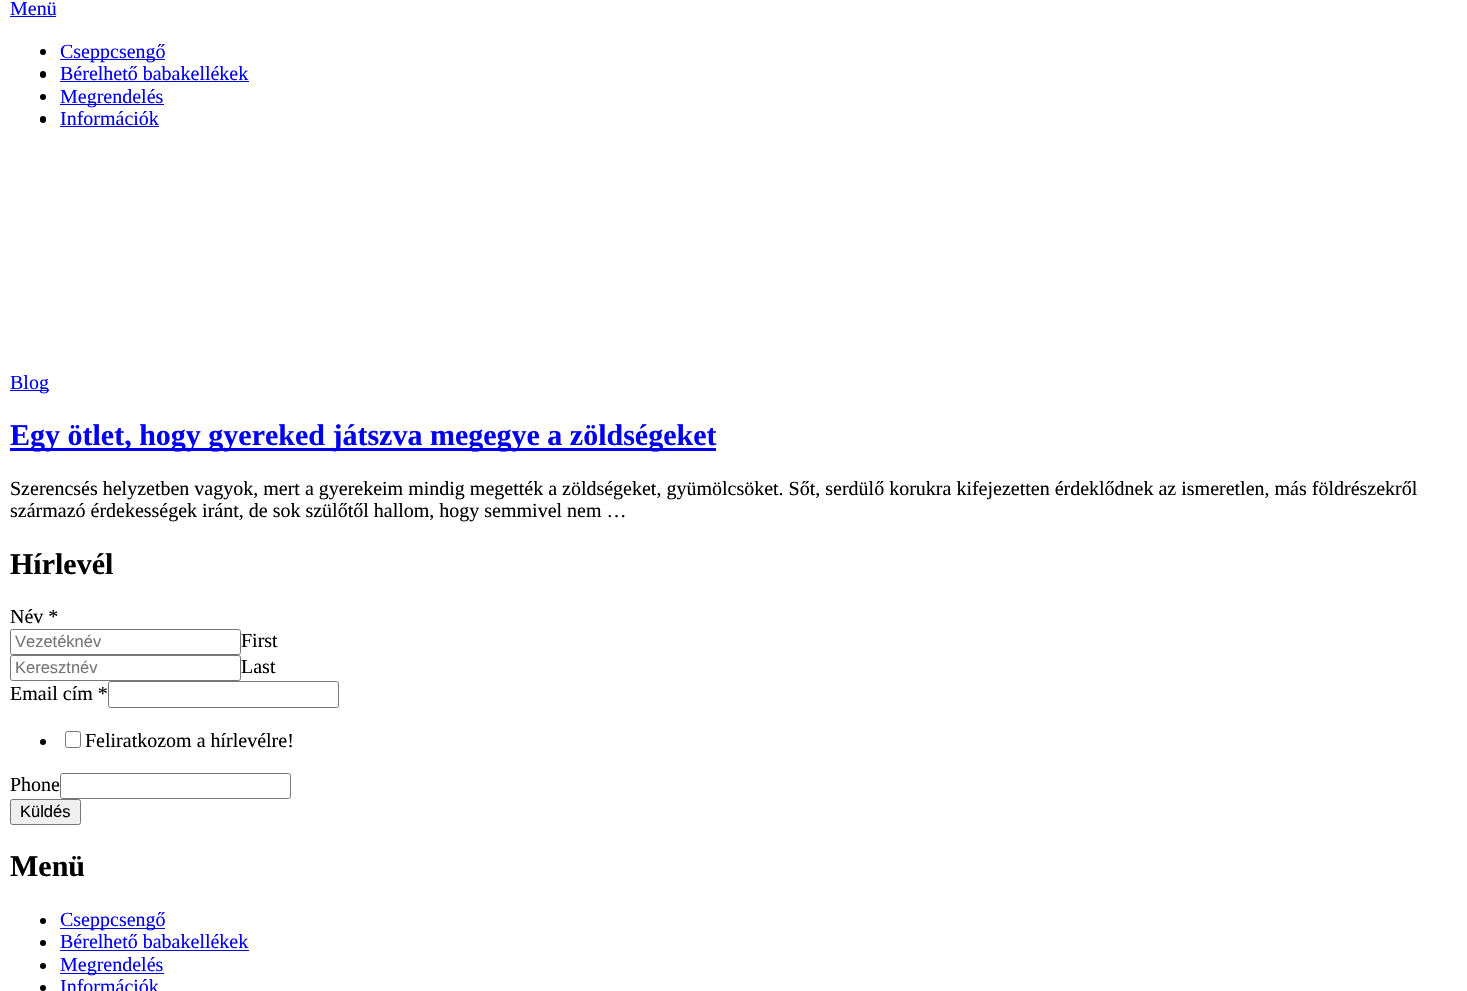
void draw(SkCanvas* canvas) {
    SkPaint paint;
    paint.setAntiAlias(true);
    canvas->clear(0xFFFFFFFF);
    SkFont font1(fontMgr->matchFamilyStyle("Liberation Serif", SkFontStyle::Normal()), 20);
    font1.setSubpixel(true);
    paint.setColor(0xFF0000EE);
    canvas->drawString("Menü", 10, 15, font1, paint);
    canvas->drawRect(SkRect::MakeXYWH(10, 16, 46, 1), paint);
    paint.setColor(0xFF000000);
    canvas->drawCircle(43, 52, 3, paint);
    paint.setColor(0xFF0000EE);
    canvas->drawRect(SkRect::MakeXYWH(60, 59, 105, 1), paint);
    canvas->drawString("Cseppcsengő", 60, 58, font1, paint);
    paint.setColor(0xFF000000);
    canvas->drawRoundRect(SkRect::MakeXYWH(40, 71, 6, 7), 3, 3, paint);
    paint.setColor(0xFF0000EE);
    canvas->drawString("Bérelhető babakellékek", 60, 80, font1, paint);
    canvas->drawRect(SkRect::MakeXYWH(60, 81, 189, 1), paint);
    paint.setColor(0xFF000000);
    canvas->drawCircle(43, 97, 3, paint);
    paint.setColor(0xFF0000EE);
    canvas->drawRect(SkRect::MakeXYWH(60, 104, 104, 1), paint);
    canvas->drawString("Megrendelés", 60, 103, font1, paint);
    paint.setColor(0xFF000000);
    canvas->drawRoundRect(SkRect::MakeXYWH(40, 116, 6, 7), 3, 3, paint);
    paint.setColor(0xFF0000EE);
    canvas->drawString("Információk", 60, 125, font1, paint);
    canvas->drawRect(SkRect::MakeXYWH(60, 126, 99, 1), paint);
    canvas->drawRect(SkRect::MakeXYWH(10, 390, 39, 1), paint);
    canvas->drawString("Blog", 10, 389, font1, paint);
    canvas->drawRect(SkRect::MakeXYWH(10, 448, 706, 3), paint);
    SkFont font2(fontMgr->matchFamilyStyle("Liberation Serif", SkFontStyle::Bold()), 30);
    font2.setSubpixel(true);
    canvas->drawString("Egy ötlet, hogy gyereked játszva megegye a zöldségeket", 10, 445, font2, paint);
    paint.setColor(0xFF000000);
    canvas->drawString("Szerencsés helyzetben vagyok, mert a gyerekeim mindig megették a zöldségeket, gyümölcsöket. Sőt, serdülő korukra kifejezetten érdeklődnek az ismeretlen, más földrészekről", 10, 495, font1, paint);
    canvas->drawString("származó érdekességek iránt, de sok szülőtől hallom, hogy semmivel nem …", 10, 517, font1, paint);
    canvas->drawString("Hírlevél", 10, 574, font2, paint);
    canvas->drawString("Név *", 10, 623, font1, paint);
    paint.setStyle(SkPaint::kStroke_Style);
    paint.setStrokeWidth(1);
    paint.setColor(0xFF767676);
    canvas->drawRoundRect(SkRect::MakeXYWH(10.5f, 629.5f, 230, 25), 2, 2, paint);
    SkFont font3(fontMgr->matchFamilyStyle("Liberation Sans", SkFontStyle::Normal()), 16.5f);
    font3.setSubpixel(true);
    paint.setStyle(SkPaint::kFill_Style);
    paint.setColor(0xFF757575);
    canvas->drawString("Vezetéknév", 15, 647, font3, paint);
    paint.setColor(0xFF000000);
    canvas->drawString("First", 241, 647, font1, paint);
    paint.setStyle(SkPaint::kStroke_Style);
    paint.setColor(0xFF767676);
    canvas->drawRoundRect(SkRect::MakeXYWH(10.5f, 655.5f, 230, 25), 2, 2, paint);
    paint.setStyle(SkPaint::kFill_Style);
    paint.setColor(0xFF757575);
    canvas->drawString("Keresztnév", 15, 673, font3, paint);
    paint.setColor(0xFF000000);
    canvas->drawString("Last", 241, 673, font1, paint);
    canvas->drawString("Email cím *", 10, 700, font1, paint);
    paint.setStyle(SkPaint::kStroke_Style);
    paint.setColor(0xFF767676);
    canvas->drawRoundRect(SkRect::MakeXYWH(108.5f, 681.5f, 230, 26), 2, 2, paint);
    paint.setStyle(SkPaint::kFill_Style);
    paint.setColor(0xFF000000);
    canvas->drawCircle(43, 742, 3, paint);
    paint.setStyle(SkPaint::kStroke_Style);
    paint.setColor(0xFF767676);
    canvas->drawRoundRect(SkRect::MakeXYWH(65.5f, 731.5f, 15, 16), 2, 2, paint);
    paint.setStyle(SkPaint::kFill_Style);
    paint.setColor(0xFF000000);
    canvas->drawString("Feliratkozom a hírlevélre!", 85, 747, font1, paint);
    canvas->drawString("Phone", 10, 791, font1, paint);
    paint.setStyle(SkPaint::kStroke_Style);
    paint.setColor(0xFF767676);
    canvas->drawRoundRect(SkRect::MakeXYWH(60.5f, 773.5f, 230, 25), 2, 2, paint);
    paint.setStyle(SkPaint::kFill_Style);
    paint.setColor(0xFFEFEFEF);
    canvas->drawRoundRect(SkRect::MakeXYWH(10.5f, 799.5f, 70, 25), 2, 2, paint);
    paint.setStyle(SkPaint::kStroke_Style);
    paint.setColor(0xFF767676);
    canvas->drawRoundRect(SkRect::MakeXYWH(10.5f, 799.5f, 70, 25), 2, 2, paint);
    paint.setStyle(SkPaint::kFill_Style);
    paint.setColor(0xFF000000);
    canvas->drawString("Küldés", 20, 817, font3, paint);
    canvas->drawString("Menü", 10, 876, font2, paint);
    canvas->drawCircle(43, 921, 3, paint);
    paint.setColor(0xFF0000EE);
    canvas->drawRect(SkRect::MakeXYWH(60, 928, 105, 1), paint);
    canvas->drawString("Cseppcsengő", 60, 926, font1, paint);
    paint.setColor(0xFF000000);
    canvas->drawCircle(43, 943, 3, paint);
    paint.setColor(0xFF0000EE);
    canvas->drawString("Bérelhető babakellékek", 60, 948, font1, paint);
    canvas->drawRect(SkRect::MakeXYWH(60, 950, 189, 1), paint);
    paint.setColor(0xFF000000);
    canvas->drawCircle(43, 966, 3, paint);
    paint.setColor(0xFF0000EE);
    canvas->drawRect(SkRect::MakeXYWH(60, 973, 104, 1), paint);
    canvas->drawString("Megrendelés", 60, 971, font1, paint);
    paint.setColor(0xFF000000);
    canvas->drawCircle(43, 988, 3, paint);
    paint.setColor(0xFF0000EE);
    canvas->drawString("Információk", 60, 993, font1, paint);
}
